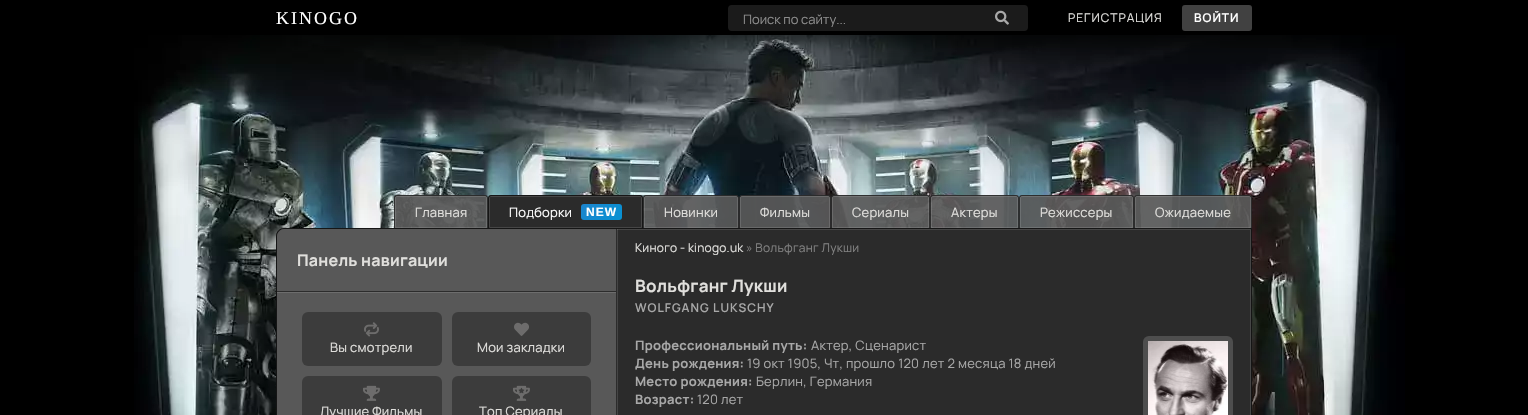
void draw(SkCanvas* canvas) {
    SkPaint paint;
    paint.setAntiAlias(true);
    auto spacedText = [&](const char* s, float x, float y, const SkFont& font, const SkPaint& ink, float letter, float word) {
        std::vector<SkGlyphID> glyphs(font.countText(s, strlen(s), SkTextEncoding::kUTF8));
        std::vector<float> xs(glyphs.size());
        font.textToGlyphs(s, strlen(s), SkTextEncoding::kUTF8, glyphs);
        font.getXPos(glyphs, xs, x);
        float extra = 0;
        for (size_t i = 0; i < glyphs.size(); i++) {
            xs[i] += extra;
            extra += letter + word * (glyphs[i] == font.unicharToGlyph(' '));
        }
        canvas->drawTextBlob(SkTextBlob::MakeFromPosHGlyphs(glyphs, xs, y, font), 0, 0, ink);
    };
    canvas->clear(0xFF000000);
    canvas->drawImageRect(SkImages::DeferredFromEncodedData(SkData::MakeFromFileName("img1.png")), SkRect::MakeXYWH(134, 35, 1271, 380), SkSamplingOptions());
    paint.setColor(0x80000000);
    paint.setMaskFilter(SkMaskFilter::MakeBlur(kNormal_SkBlurStyle, 8));
    canvas->drawRect(SkRect::MakeXYWH(0, 8, 1528, 35), paint);
    paint.setMaskFilter(nullptr);
    SkFont font1(fontMgr->matchFamilyStyle("Liberation Serif", SkFontStyle::Normal()), 18);
    font1.setSubpixel(true);
    paint.setColor(0xFFFFFFFF);
    spacedText("KINOGO", 276, 24, font1, paint, 2, 0);
    paint.setColor(0xFF1B1B1B);
    canvas->drawRoundRect(SkRect::MakeXYWH(728, 5, 300, 26), 4, 4, paint);
    SkFont font2(fontMgr->matchFamilyStyle("Manrope", SkFontStyle(200, SkFontStyle::kNormal_Width, SkFontStyle::kUpright_Slant)), 13);
    font2.setSubpixel(true);
    paint.setColor(0xFF8C8C8C);
    canvas->drawString("Поиск по сайту...", 743, 24, font2, paint);
    canvas->drawImageRect(SkImages::DeferredFromEncodedData(SkData::MakeFromFileName("img2.png")), SkRect::MakeXYWH(995, 10, 14, 15), SkSamplingOptions());
    SkFont font3(fontMgr->matchFamilyStyle("Manrope", SkFontStyle(200, SkFontStyle::kNormal_Width, SkFontStyle::kUpright_Slant)), 12);
    font3.setSubpixel(true);
    paint.setColor(0xFFE0DFDC);
    spacedText("РЕГИСТРАЦИЯ", 1068, 22, font3, paint, 1, 0);
    paint.setColor(0xFF414141);
    canvas->drawRoundRect(SkRect::MakeXYWH(1182, 5, 70, 26), 3, 3, paint);
    SkFont font4(fontMgr->matchFamilyStyle("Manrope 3", SkFontStyle(200, SkFontStyle::kNormal_Width, SkFontStyle::kUpright_Slant)), 12);
    font4.setSubpixel(true);
    paint.setColor(0xFFFFFFFF);
    spacedText("ВОЙТИ", 1194, 22, font4, paint, 1, 0);
    paint.setColor(0xED585858);
    canvas->drawPath(SkPathBuilder().moveTo(397, 195).lineTo(485, 195).cubicTo(486.5f, 195, 488, 196.5f, 488, 198).lineTo(488, 228).lineTo(394, 228).lineTo(394, 198).cubicTo(394, 196.5f, 395.5f, 195, 397, 195).close().detach(), paint);
    paint.setStyle(SkPaint::kStroke_Style);
    paint.setStrokeWidth(1);
    paint.setColor(0x1FFFFFFF);
    canvas->drawPath(SkPathBuilder().moveTo(397, 196.5f).lineTo(485, 196.5f).cubicTo(486, 196.5f, 486.5f, 197, 486.5f, 198).lineTo(486.5f, 227.5f).lineTo(395.5f, 227.5f).lineTo(395.5f, 198).cubicTo(395.5f, 197, 396, 196.5f, 397, 196.5f).close().detach(), paint);
    paint.setStyle(SkPaint::kFill_Style);
    paint.setColor(0x80000000);
    canvas->drawPath(SkPathBuilder(SkPathFillType::kEvenOdd).moveTo(397, 195).lineTo(485, 195).cubicTo(487, 195, 488, 196, 488, 198).lineTo(488, 228).lineTo(394, 228).lineTo(394, 198).cubicTo(394, 196, 395, 195, 397, 195).close().moveTo(397, 196).lineTo(485, 196).cubicTo(486, 196, 487, 197, 487, 198).lineTo(487, 228).lineTo(395, 228).lineTo(395, 198).cubicTo(395, 197, 396, 196, 397, 196).close().detach(), paint);
    paint.setColor(0xFFE0DFDC);
    spacedText("Главная", 415, 217, font2, paint, 0.25f, 0);
    paint.setColor(0xFF2B2B2B);
    canvas->drawPath(SkPathBuilder().moveTo(491, 195).lineTo(640, 195).cubicTo(641.5f, 195, 643, 196.5f, 643, 198).lineTo(643, 228).lineTo(488, 228).lineTo(488, 198).cubicTo(488, 196.5f, 489.5f, 195, 491, 195).close().detach(), paint);
    paint.setStyle(SkPaint::kStroke_Style);
    paint.setColor(0xFF464646);
    canvas->drawPath(SkPathBuilder().moveTo(491, 196.5f).lineTo(640, 196.5f).cubicTo(641, 196.5f, 641.5f, 197, 641.5f, 198).lineTo(641.5f, 227.5f).lineTo(489.5f, 227.5f).lineTo(489.5f, 198).cubicTo(489.5f, 197, 490, 196.5f, 491, 196.5f).close().detach(), paint);
    paint.setStyle(SkPaint::kFill_Style);
    paint.setColor(0x80000000);
    canvas->drawPath(SkPathBuilder(SkPathFillType::kEvenOdd).moveTo(491, 195).lineTo(640, 195).cubicTo(642, 195, 643, 196, 643, 198).lineTo(643, 228).lineTo(488, 228).lineTo(488, 198).cubicTo(488, 196, 489, 195, 491, 195).close().moveTo(491, 196).lineTo(640, 196).cubicTo(641, 196, 642, 197, 642, 198).lineTo(642, 228).lineTo(489, 228).lineTo(489, 198).cubicTo(489, 197, 490, 196, 491, 196).close().detach(), paint);
    paint.setColor(0xFFFFFFFF);
    spacedText("Подборки", 509, 217, font2, paint, 0.25f, 0);
    {
        const SkColor colors[] = {0xFFEE5200, 0xFFE70062, 0xFF0097D5, 0xFF1C84CD};
        const float stops[] = {0, 0.33f, 0.67f, 1};
        const SkPoint ends[] = {{720, 293}, {606, 179}};
        paint.setShader(SkGradientShader::MakeLinear(ends, colors, stops, 4, SkTileMode::kClamp));
        paint.setAlpha(255);
    }
    canvas->drawRoundRect(SkRect::MakeXYWH(581, 204, 41, 16), 3, 3, paint);
    SkFont font5(fontMgr->matchFamilyStyle("Liberation Sans", SkFontStyle::Bold()), 12);
    font5.setSubpixel(true);
    paint.setShader(nullptr);
    paint.setColor(0xFFFFFFFF);
    spacedText("NEW", 586, 216, font5, paint, 1, 0);
    paint.setColor(0xED585858);
    canvas->drawPath(SkPathBuilder().moveTo(646, 195).lineTo(736, 195).cubicTo(737.5f, 195, 739, 196.5f, 739, 198).lineTo(739, 228).lineTo(643, 228).lineTo(643, 198).cubicTo(643, 196.5f, 644.5f, 195, 646, 195).close().detach(), paint);
    paint.setStyle(SkPaint::kStroke_Style);
    paint.setColor(0x1FFFFFFF);
    canvas->drawPath(SkPathBuilder().moveTo(646, 196.5f).lineTo(736, 196.5f).cubicTo(737, 196.5f, 737.5f, 197, 737.5f, 198).lineTo(737.5f, 227.5f).lineTo(644.5f, 227.5f).lineTo(644.5f, 198).cubicTo(644.5f, 197, 645, 196.5f, 646, 196.5f).close().detach(), paint);
    paint.setStyle(SkPaint::kFill_Style);
    paint.setColor(0x80000000);
    canvas->drawPath(SkPathBuilder(SkPathFillType::kEvenOdd).moveTo(646, 195).lineTo(736, 195).cubicTo(738, 195, 739, 196, 739, 198).lineTo(739, 228).lineTo(643, 228).lineTo(643, 198).cubicTo(643, 196, 644, 195, 646, 195).close().moveTo(646, 196).lineTo(736, 196).cubicTo(737, 196, 738, 197, 738, 198).lineTo(738, 228).lineTo(644, 228).lineTo(644, 198).cubicTo(644, 197, 645, 196, 646, 196).close().detach(), paint);
    paint.setColor(0xFFE0DFDC);
    spacedText("Новинки", 664, 217, font2, paint, 0.25f, 0);
    paint.setColor(0xED585858);
    canvas->drawPath(SkPathBuilder().moveTo(742, 195).lineTo(828, 195).cubicTo(829.5f, 195, 831, 196.5f, 831, 198).lineTo(831, 228).lineTo(739, 228).lineTo(739, 198).cubicTo(739, 196.5f, 740.5f, 195, 742, 195).close().detach(), paint);
    paint.setStyle(SkPaint::kStroke_Style);
    paint.setColor(0x1FFFFFFF);
    canvas->drawPath(SkPathBuilder().moveTo(742, 196.5f).lineTo(828, 196.5f).cubicTo(829, 196.5f, 829.5f, 197, 829.5f, 198).lineTo(829.5f, 227.5f).lineTo(740.5f, 227.5f).lineTo(740.5f, 198).cubicTo(740.5f, 197, 741, 196.5f, 742, 196.5f).close().detach(), paint);
    paint.setStyle(SkPaint::kFill_Style);
    paint.setColor(0x80000000);
    canvas->drawPath(SkPathBuilder(SkPathFillType::kEvenOdd).moveTo(742, 195).lineTo(828, 195).cubicTo(830, 195, 831, 196, 831, 198).lineTo(831, 228).lineTo(739, 228).lineTo(739, 198).cubicTo(739, 196, 740, 195, 742, 195).close().moveTo(742, 196).lineTo(828, 196).cubicTo(829, 196, 830, 197, 830, 198).lineTo(830, 228).lineTo(740, 228).lineTo(740, 198).cubicTo(740, 197, 741, 196, 742, 196).close().detach(), paint);
    paint.setColor(0xFFE0DFDC);
    spacedText("Фильмы", 760, 217, font2, paint, 0.25f, 0);
    paint.setColor(0xED585858);
    canvas->drawPath(SkPathBuilder().moveTo(834, 195).lineTo(927, 195).cubicTo(928.5f, 195, 930, 196.5f, 930, 198).lineTo(930, 228).lineTo(831, 228).lineTo(831, 198).cubicTo(831, 196.5f, 832.5f, 195, 834, 195).close().detach(), paint);
    paint.setStyle(SkPaint::kStroke_Style);
    paint.setColor(0x1FFFFFFF);
    canvas->drawPath(SkPathBuilder().moveTo(834, 196.5f).lineTo(927, 196.5f).cubicTo(928, 196.5f, 928.5f, 197, 928.5f, 198).lineTo(928.5f, 227.5f).lineTo(832.5f, 227.5f).lineTo(832.5f, 198).cubicTo(832.5f, 197, 833, 196.5f, 834, 196.5f).close().detach(), paint);
    paint.setStyle(SkPaint::kFill_Style);
    paint.setColor(0x80000000);
    canvas->drawPath(SkPathBuilder(SkPathFillType::kEvenOdd).moveTo(834, 195).lineTo(927, 195).cubicTo(929, 195, 930, 196, 930, 198).lineTo(930, 228).lineTo(831, 228).lineTo(831, 198).cubicTo(831, 196, 832, 195, 834, 195).close().moveTo(834, 196).lineTo(927, 196).cubicTo(928, 196, 929, 197, 929, 198).lineTo(929, 228).lineTo(832, 228).lineTo(832, 198).cubicTo(832, 197, 833, 196, 834, 196).close().detach(), paint);
    paint.setColor(0xFFE0DFDC);
    spacedText("Сериалы", 852, 217, font2, paint, 0.25f, 0);
    paint.setColor(0xED585858);
    canvas->drawPath(SkPathBuilder().moveTo(933, 195).lineTo(1016, 195).cubicTo(1017.5f, 195, 1019, 196.5f, 1019, 198).lineTo(1019, 228).lineTo(930, 228).lineTo(930, 198).cubicTo(930, 196.5f, 931.5f, 195, 933, 195).close().detach(), paint);
    paint.setStyle(SkPaint::kStroke_Style);
    paint.setColor(0x1FFFFFFF);
    canvas->drawPath(SkPathBuilder().moveTo(933, 196.5f).lineTo(1016, 196.5f).cubicTo(1017, 196.5f, 1017.5f, 197, 1017.5f, 198).lineTo(1017.5f, 227.5f).lineTo(931.5f, 227.5f).lineTo(931.5f, 198).cubicTo(931.5f, 197, 932, 196.5f, 933, 196.5f).close().detach(), paint);
    paint.setStyle(SkPaint::kFill_Style);
    paint.setColor(0x80000000);
    canvas->drawPath(SkPathBuilder(SkPathFillType::kEvenOdd).moveTo(933, 195).lineTo(1016, 195).cubicTo(1018, 195, 1019, 196, 1019, 198).lineTo(1019, 228).lineTo(930, 228).lineTo(930, 198).cubicTo(930, 196, 931, 195, 933, 195).close().moveTo(933, 196).lineTo(1016, 196).cubicTo(1017, 196, 1018, 197, 1018, 198).lineTo(1018, 228).lineTo(931, 228).lineTo(931, 198).cubicTo(931, 197, 932, 196, 933, 196).close().detach(), paint);
    paint.setColor(0xFFE0DFDC);
    spacedText("Актеры", 951, 217, font2, paint, 0.25f, 0);
    paint.setColor(0xED585858);
    canvas->drawPath(SkPathBuilder().moveTo(1022, 195).lineTo(1131, 195).cubicTo(1132.5f, 195, 1134, 196.5f, 1134, 198).lineTo(1134, 228).lineTo(1019, 228).lineTo(1019, 198).cubicTo(1019, 196.5f, 1020.5f, 195, 1022, 195).close().detach(), paint);
    paint.setStyle(SkPaint::kStroke_Style);
    paint.setColor(0x1FFFFFFF);
    canvas->drawPath(SkPathBuilder().moveTo(1022, 196.5f).lineTo(1131, 196.5f).cubicTo(1132, 196.5f, 1132.5f, 197, 1132.5f, 198).lineTo(1132.5f, 227.5f).lineTo(1020.5f, 227.5f).lineTo(1020.5f, 198).cubicTo(1020.5f, 197, 1021, 196.5f, 1022, 196.5f).close().detach(), paint);
    paint.setStyle(SkPaint::kFill_Style);
    paint.setColor(0x80000000);
    canvas->drawPath(SkPathBuilder(SkPathFillType::kEvenOdd).moveTo(1022, 195).lineTo(1131, 195).cubicTo(1133, 195, 1134, 196, 1134, 198).lineTo(1134, 228).lineTo(1019, 228).lineTo(1019, 198).cubicTo(1019, 196, 1020, 195, 1022, 195).close().moveTo(1022, 196).lineTo(1131, 196).cubicTo(1132, 196, 1133, 197, 1133, 198).lineTo(1133, 228).lineTo(1020, 228).lineTo(1020, 198).cubicTo(1020, 197, 1021, 196, 1022, 196).close().detach(), paint);
    paint.setColor(0xFFE0DFDC);
    spacedText("Режиссеры", 1040, 217, font2, paint, 0.25f, 0);
    paint.setColor(0xED585858);
    canvas->drawPath(SkPathBuilder().moveTo(1137, 195).lineTo(1249, 195).cubicTo(1250.5f, 195, 1252, 196.5f, 1252, 198).lineTo(1252, 228).lineTo(1134, 228).lineTo(1134, 198).cubicTo(1134, 196.5f, 1135.5f, 195, 1137, 195).close().detach(), paint);
    paint.setStyle(SkPaint::kStroke_Style);
    paint.setColor(0x1FFFFFFF);
    canvas->drawPath(SkPathBuilder().moveTo(1137, 196.5f).lineTo(1249, 196.5f).cubicTo(1250, 196.5f, 1250.5f, 197, 1250.5f, 198).lineTo(1250.5f, 227.5f).lineTo(1135.5f, 227.5f).lineTo(1135.5f, 198).cubicTo(1135.5f, 197, 1136, 196.5f, 1137, 196.5f).close().detach(), paint);
    paint.setStyle(SkPaint::kFill_Style);
    paint.setColor(0x80000000);
    canvas->drawPath(SkPathBuilder(SkPathFillType::kEvenOdd).moveTo(1137, 195).lineTo(1249, 195).cubicTo(1251, 195, 1252, 196, 1252, 198).lineTo(1252, 228).lineTo(1134, 228).lineTo(1134, 198).cubicTo(1134, 196, 1135, 195, 1137, 195).close().moveTo(1137, 196).lineTo(1249, 196).cubicTo(1250, 196, 1251, 197, 1251, 198).lineTo(1251, 228).lineTo(1135, 228).lineTo(1135, 198).cubicTo(1135, 197, 1136, 196, 1137, 196).close().detach(), paint);
    paint.setColor(0xFFE0DFDC);
    spacedText("Ожидаемые", 1155, 217, font2, paint, 0.25f, 0);
    paint.setColor(0xFF2B2B2B);
    canvas->drawPath(SkPathBuilder().moveTo(284, 228).lineTo(1252, 228).lineTo(1252, 415).cubicTo(1252, 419.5f, 1248.5f, 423, 1244, 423).lineTo(284, 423).cubicTo(279.5f, 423, 276, 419.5f, 276, 415).lineTo(276, 236).cubicTo(276, 231.5f, 279.5f, 228, 284, 228).close().detach(), paint);
    paint.setStyle(SkPaint::kStroke_Style);
    paint.setColor(0xFF464646);
    canvas->drawPath(SkPathBuilder().moveTo(284, 229.5f).lineTo(1250.5f, 229.5f).lineTo(1250.5f, 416).cubicTo(1250.5f, 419.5f, 1247.5f, 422.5f, 1244, 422.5f).lineTo(284, 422.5f).cubicTo(280.5f, 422.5f, 277.5f, 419.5f, 277.5f, 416).lineTo(277.5f, 236).cubicTo(277.5f, 232.5f, 280.5f, 229.5f, 284, 229.5f).close().detach(), paint);
    paint.setColor(0x80000000);
    canvas->drawPath(SkPathBuilder().moveTo(284, 228.5f).lineTo(1251.5f, 228.5f).lineTo(1251.5f, 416).cubicTo(1251.5f, 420, 1248, 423.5f, 1244, 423.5f).lineTo(284, 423.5f).cubicTo(280, 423.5f, 276.5f, 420, 276.5f, 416).lineTo(276.5f, 236).cubicTo(276.5f, 232, 280, 228.5f, 284, 228.5f).close().detach(), paint);
    paint.setStyle(SkPaint::kFill_Style);
    paint.setColor(0x1FFFFFFF);
    canvas->drawRect(SkRect::MakeXYWH(617, 229, 1, 186), paint);
    paint.setColor(0xFF585858);
    canvas->drawPath(SkPathBuilder().moveTo(285, 229).lineTo(617, 229).lineTo(617, 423).lineTo(285, 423).cubicTo(280.5f, 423, 277, 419.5f, 277, 415).lineTo(277, 237).cubicTo(277, 232.5f, 280.5f, 229, 285, 229).close().detach(), paint);
    paint.setColor(0xFF2C2C2C);
    canvas->drawRect(SkRect::MakeXYWH(616, 229, 1, 186), paint);
    paint.setColor(0xFF6D6D6D);
    canvas->drawRect(SkRect::MakeXYWH(277, 292, 339, 1), paint);
    paint.setColor(0xFF2C2C2C);
    canvas->drawRect(SkRect::MakeXYWH(277, 291, 339, 1), paint);
    SkFont font6(fontMgr->matchFamilyStyle("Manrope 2", SkFontStyle(200, SkFontStyle::kNormal_Width, SkFontStyle::kUpright_Slant)), 16);
    font6.setSubpixel(true);
    paint.setColor(0xFFE0DFDC);
    spacedText("Панель навигации", 297, 266, font6, paint, 0.25f, 0);
    paint.setColor(0xFF3C3C3C);
    canvas->drawRoundRect(SkRect::MakeXYWH(302, 312, 140, 54), 6, 6, paint);
    canvas->drawImageRect(SkImages::DeferredFromEncodedData(SkData::MakeFromFileName("img3.png")), SkRect::MakeXYWH(364, 322, 15, 15), SkSamplingOptions());
    paint.setColor(0xFFE0DFDC);
    spacedText("Вы смотрели", 330, 352, font2, paint, 0.25f, 0);
    paint.setColor(0xFF3C3C3C);
    canvas->drawRoundRect(SkRect::MakeXYWH(452, 312, 139, 54), 6, 6, paint);
    canvas->drawImageRect(SkImages::DeferredFromEncodedData(SkData::MakeFromFileName("img4.png")), SkRect::MakeXYWH(514, 322, 15, 14), SkSamplingOptions());
    paint.setColor(0xFFE0DFDC);
    spacedText("Мои закладки", 477, 352, font2, paint, 0.25f, 0);
    paint.setColor(0xFF3C3C3C);
    canvas->drawRoundRect(SkRect::MakeXYWH(302, 376, 140, 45), 6, 6, paint);
    canvas->drawImageRect(SkImages::DeferredFromEncodedData(SkData::MakeFromFileName("img5.png")), SkRect::MakeXYWH(363, 385, 17, 16), SkSamplingOptions());
    paint.setColor(0xFFE0DFDC);
    spacedText("Лучшие Фильмы", 320, 416, font2, paint, 0.25f, 0);
    paint.setColor(0xFF3C3C3C);
    canvas->drawRoundRect(SkRect::MakeXYWH(452, 376, 139, 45), 6, 6, paint);
    canvas->drawImageRect(SkImages::DeferredFromEncodedData(SkData::MakeFromFileName("img6.png")), SkRect::MakeXYWH(513, 385, 17, 16), SkSamplingOptions());
    paint.setColor(0xFFE0DFDC);
    spacedText("Топ Сериалы", 479, 416, font2, paint, 0.25f, 0);
    spacedText("Киного - kinogo.uk", 635, 252, font3, paint, 0.25f, 0);
    paint.setColor(0xFF818181);
    spacedText("» Вольфганг Лукши", 746, 252, font3, paint, 0.25f, 0);
    SkFont font7(fontMgr->matchFamilyStyle("Manrope 2", SkFontStyle(200, SkFontStyle::kNormal_Width, SkFontStyle::kUpright_Slant)), 17);
    font7.setSubpixel(true);
    paint.setColor(0xFFE0DFDC);
    spacedText("Вольфганг Лукши", 635, 292, font7, paint, 0.25f, 0);
    paint.setColor(0xFFA8A8A8);
    spacedText("WOLFGANG LUKSCHY", 635, 312, font4, paint, 1, 0);
    SkFont font8(fontMgr->matchFamilyStyle("Manrope 2", SkFontStyle(200, SkFontStyle::kNormal_Width, SkFontStyle::kUpright_Slant)), 13);
    font8.setSubpixel(true);
    spacedText("Профессиональный путь:", 635, 350, font8, paint, 0.25f, 0);
    spacedText("Актер, Сценарист", 811, 350, font2, paint, 0.25f, 0);
    paint.setColor(0xFF4E4E4E);
    canvas->drawRoundRect(SkRect::MakeXYWH(1143, 336, 90, 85), 6, 6, paint);
    canvas->drawImageRect(SkImages::DeferredFromEncodedData(SkData::MakeFromFileName("img7.png")), SkRect::MakeXYWH(1148, 341, 80, 74), SkSamplingOptions());
    paint.setColor(0xFFA8A8A8);
    spacedText("День рождения:", 635, 368, font8, paint, 0.25f, 0);
    spacedText("19 окт 1905, Чт, прошло 120 лет 2 месяца 18 дней", 747, 368, font2, paint, 0.25f, 0);
    spacedText("Место рождения:", 635, 386, font8, paint, 0.25f, 0);
    spacedText("Берлин, Германия", 756, 386, font2, paint, 0.25f, 0);
    spacedText("Возраст:", 635, 404, font8, paint, 0.25f, 0);
    spacedText("120 лет", 697, 404, font2, paint, 0.25f, 0);
}
